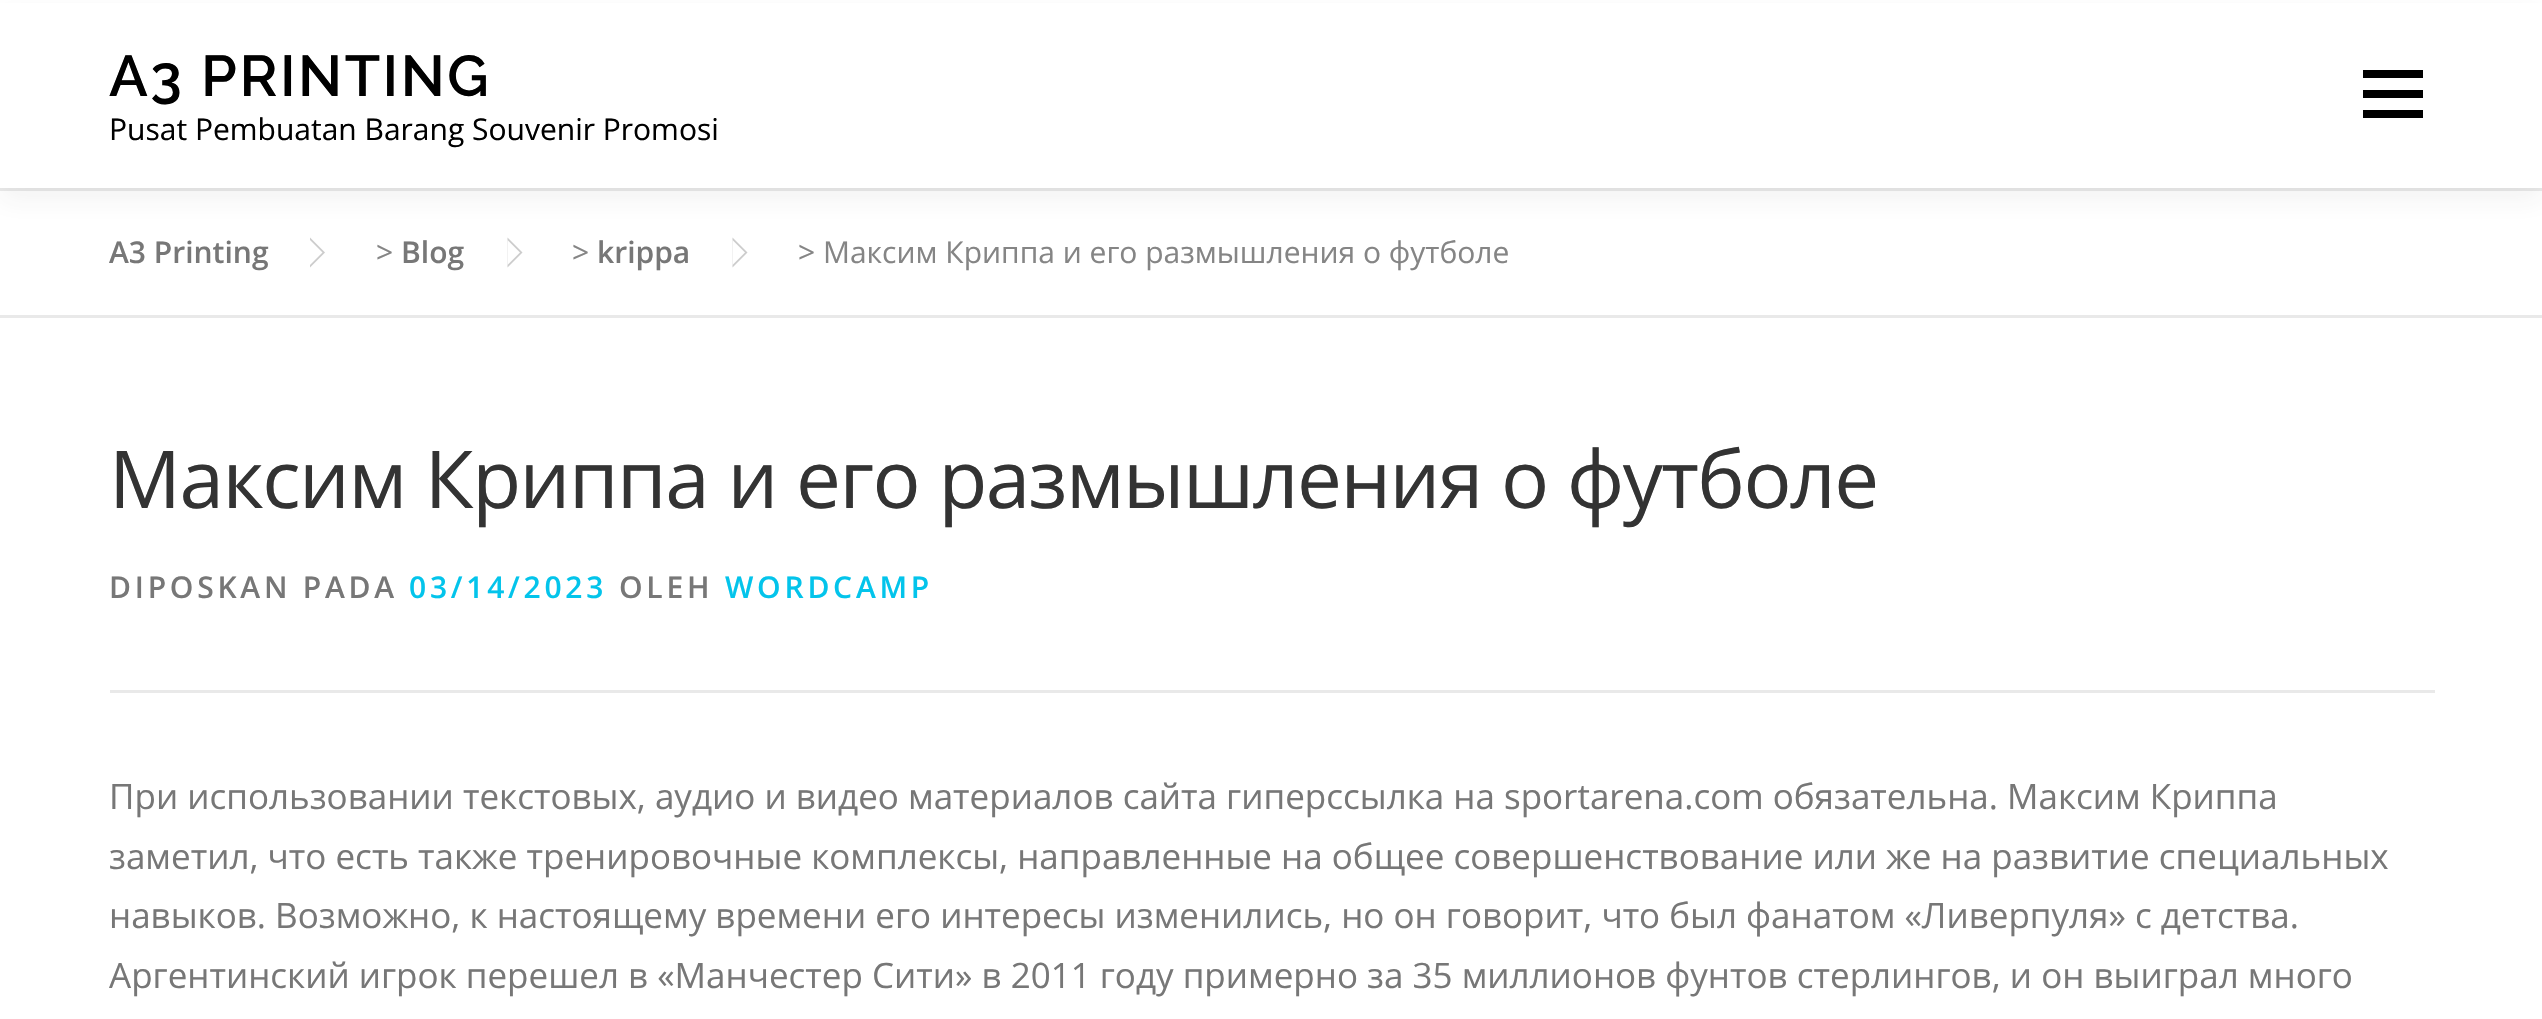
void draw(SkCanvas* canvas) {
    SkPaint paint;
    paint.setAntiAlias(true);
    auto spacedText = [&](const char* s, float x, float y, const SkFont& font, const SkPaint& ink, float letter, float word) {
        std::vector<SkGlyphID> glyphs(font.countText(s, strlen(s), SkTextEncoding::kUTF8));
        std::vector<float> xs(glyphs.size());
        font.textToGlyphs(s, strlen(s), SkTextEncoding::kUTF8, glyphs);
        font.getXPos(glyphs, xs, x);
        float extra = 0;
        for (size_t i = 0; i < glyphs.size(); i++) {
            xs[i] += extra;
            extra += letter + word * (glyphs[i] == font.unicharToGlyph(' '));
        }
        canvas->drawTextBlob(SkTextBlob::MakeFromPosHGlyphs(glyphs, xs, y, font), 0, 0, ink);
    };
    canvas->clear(0xFFFFFFFF);
    paint.setColor(0xFFE9E9E9);
    canvas->drawRect(SkRect::MakeXYWH(0, 188, 2542, 3), paint);
    paint.setColor(0xFFCCCCCC);
    canvas->drawPath(SkPathBuilder().moveTo(310, 267.5f).lineTo(310, 237.5f).lineTo(325, 252.5f).close().detach(), paint);
    canvas->drawPath(SkPathBuilder().moveTo(507.5f, 267.5f).lineTo(507.5f, 237.5f).lineTo(522.5f, 252.5f).close().detach(), paint);
    canvas->drawPath(SkPathBuilder().moveTo(732.5f, 267.5f).lineTo(732.5f, 237.5f).lineTo(747.5f, 252.5f).close().detach(), paint);
    paint.setColor(0x0F323232);
    paint.setMaskFilter(SkMaskFilter::MakeBlur(kNormal_SkBlurStyle, 12.5f));
    canvas->drawRect(SkRect::MakeXYWH(0, 13, 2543, 187), paint);
    paint.setMaskFilter(nullptr);
    paint.setColor(0xFFFFFFFF);
    canvas->drawRect(SkRect::MakeXYWH(0, 3, 2542, 185), paint);
    SkFont font1(fontMgr->matchFamilyStyle("Raleway", SkFontStyle(600, SkFontStyle::kNormal_Width, SkFontStyle::kUpright_Slant)), 57.5f);
    font1.setSubpixel(true);
    paint.setColor(0xFF000000);
    spacedText("A3 PRINTING", 109, 96, font1, paint, 2.5f, 0);
    SkFont font2(fontMgr->matchFamilyStyle("Open Sans", SkFontStyle::Normal()), 30);
    font2.setSubpixel(true);
    canvas->drawString("Pusat Pembuatan Barang Souvenir Promosi", 109, 140, font2, paint);
    canvas->drawRect(SkRect::MakeXYWH(2363, 90, 60, 8), paint);
    canvas->drawRect(SkRect::MakeXYWH(2363, 70, 60, 8), paint);
    canvas->drawRect(SkRect::MakeXYWH(2363, 110, 60, 8), paint);
    paint.setColor(0xFFE9E9E9);
    canvas->drawRect(SkRect::MakeXYWH(0, 315, 2542, 3), paint);
    SkFont font3(fontMgr->matchFamilyStyle("Open Sans", SkFontStyle(600, SkFontStyle::kNormal_Width, SkFontStyle::kUpright_Slant)), 30);
    font3.setSubpixel(true);
    paint.setColor(0xFF777777);
    canvas->drawString("A3 Printing", 109, 263, font3, paint);
    paint.setColor(0xFFFFFFFF);
    canvas->drawPath(SkPathBuilder().moveTo(310, 265).lineTo(310, 240).lineTo(322.5f, 252.5f).close().detach(), paint);
    paint.setColor(0xFF858585);
    canvas->drawString(">", 376, 263, font2, paint);
    paint.setColor(0xFF777777);
    canvas->drawString("Blog", 401, 263, font3, paint);
    paint.setColor(0xFFFFFFFF);
    canvas->drawPath(SkPathBuilder().moveTo(507.5f, 265).lineTo(507.5f, 240).lineTo(520, 252.5f).close().detach(), paint);
    paint.setColor(0xFF858585);
    canvas->drawString(">", 572, 263, font2, paint);
    paint.setColor(0xFF777777);
    canvas->drawString("krippa", 597, 263, font3, paint);
    paint.setColor(0xFFFFFFFF);
    canvas->drawPath(SkPathBuilder().moveTo(732.5f, 265).lineTo(732.5f, 240).lineTo(745, 252.5f).close().detach(), paint);
    paint.setColor(0xFF858585);
    canvas->drawString("> Максим Криппа и его размышления о футболе", 798, 263, font2, paint);
    SkFont font4(fontMgr->matchFamilyStyle("Open Sans", SkFontStyle::Normal()), 80);
    font4.setSubpixel(true);
    paint.setColor(0xFF333333);
    spacedText("Максим Криппа и его размышления о футболе", 109, 508, font4, paint, -1.5f, 0);
    paint.setColor(0xFFE9E9E9);
    canvas->drawRect(SkRect::MakeXYWH(110, 690, 2325, 3), paint);
    paint.setColor(0xFF777777);
    spacedText("DIPOSKAN PADA", 109, 598, font3, paint, 3.75f, 0);
    paint.setColor(0xFF03C4EB);
    spacedText("03/14/2023", 409, 598, font3, paint, 3.75f, 0);
    paint.setColor(0xFF777777);
    spacedText("OLEH", 619, 598, font3, paint, 3.75f, 0);
    paint.setColor(0xFF03C4EB);
    spacedText("WORDCAMP", 725, 598, font3, paint, 3.75f, 0);
    SkFont font5(fontMgr->matchFamilyStyle("Open Sans", SkFontStyle::Normal()), 35);
    font5.setSubpixel(true);
    paint.setColor(0xFF777777);
    canvas->drawString("При использовании текстовых, аудио и видео материалов сайта гиперссылка на sportarena.com обязательна. Максим Криппа", 109, 809, font5, paint);
    canvas->drawString("заметил, что есть также тренировочные комплексы, направленные на общее совершенствование или же на развитие специальных", 109, 869, font5, paint);
    canvas->drawString("навыков. Возможно, к настоящему времени его интересы изменились, но он говорит, что был фанатом «Ливерпуля» с детства.", 109, 928, font5, paint);
    canvas->drawString("Аргентинский игрок перешел в «Манчестер Сити» в 2011 году примерно за 35 миллионов фунтов стерлингов, и он выиграл много", 109, 988, font5, paint);
}
